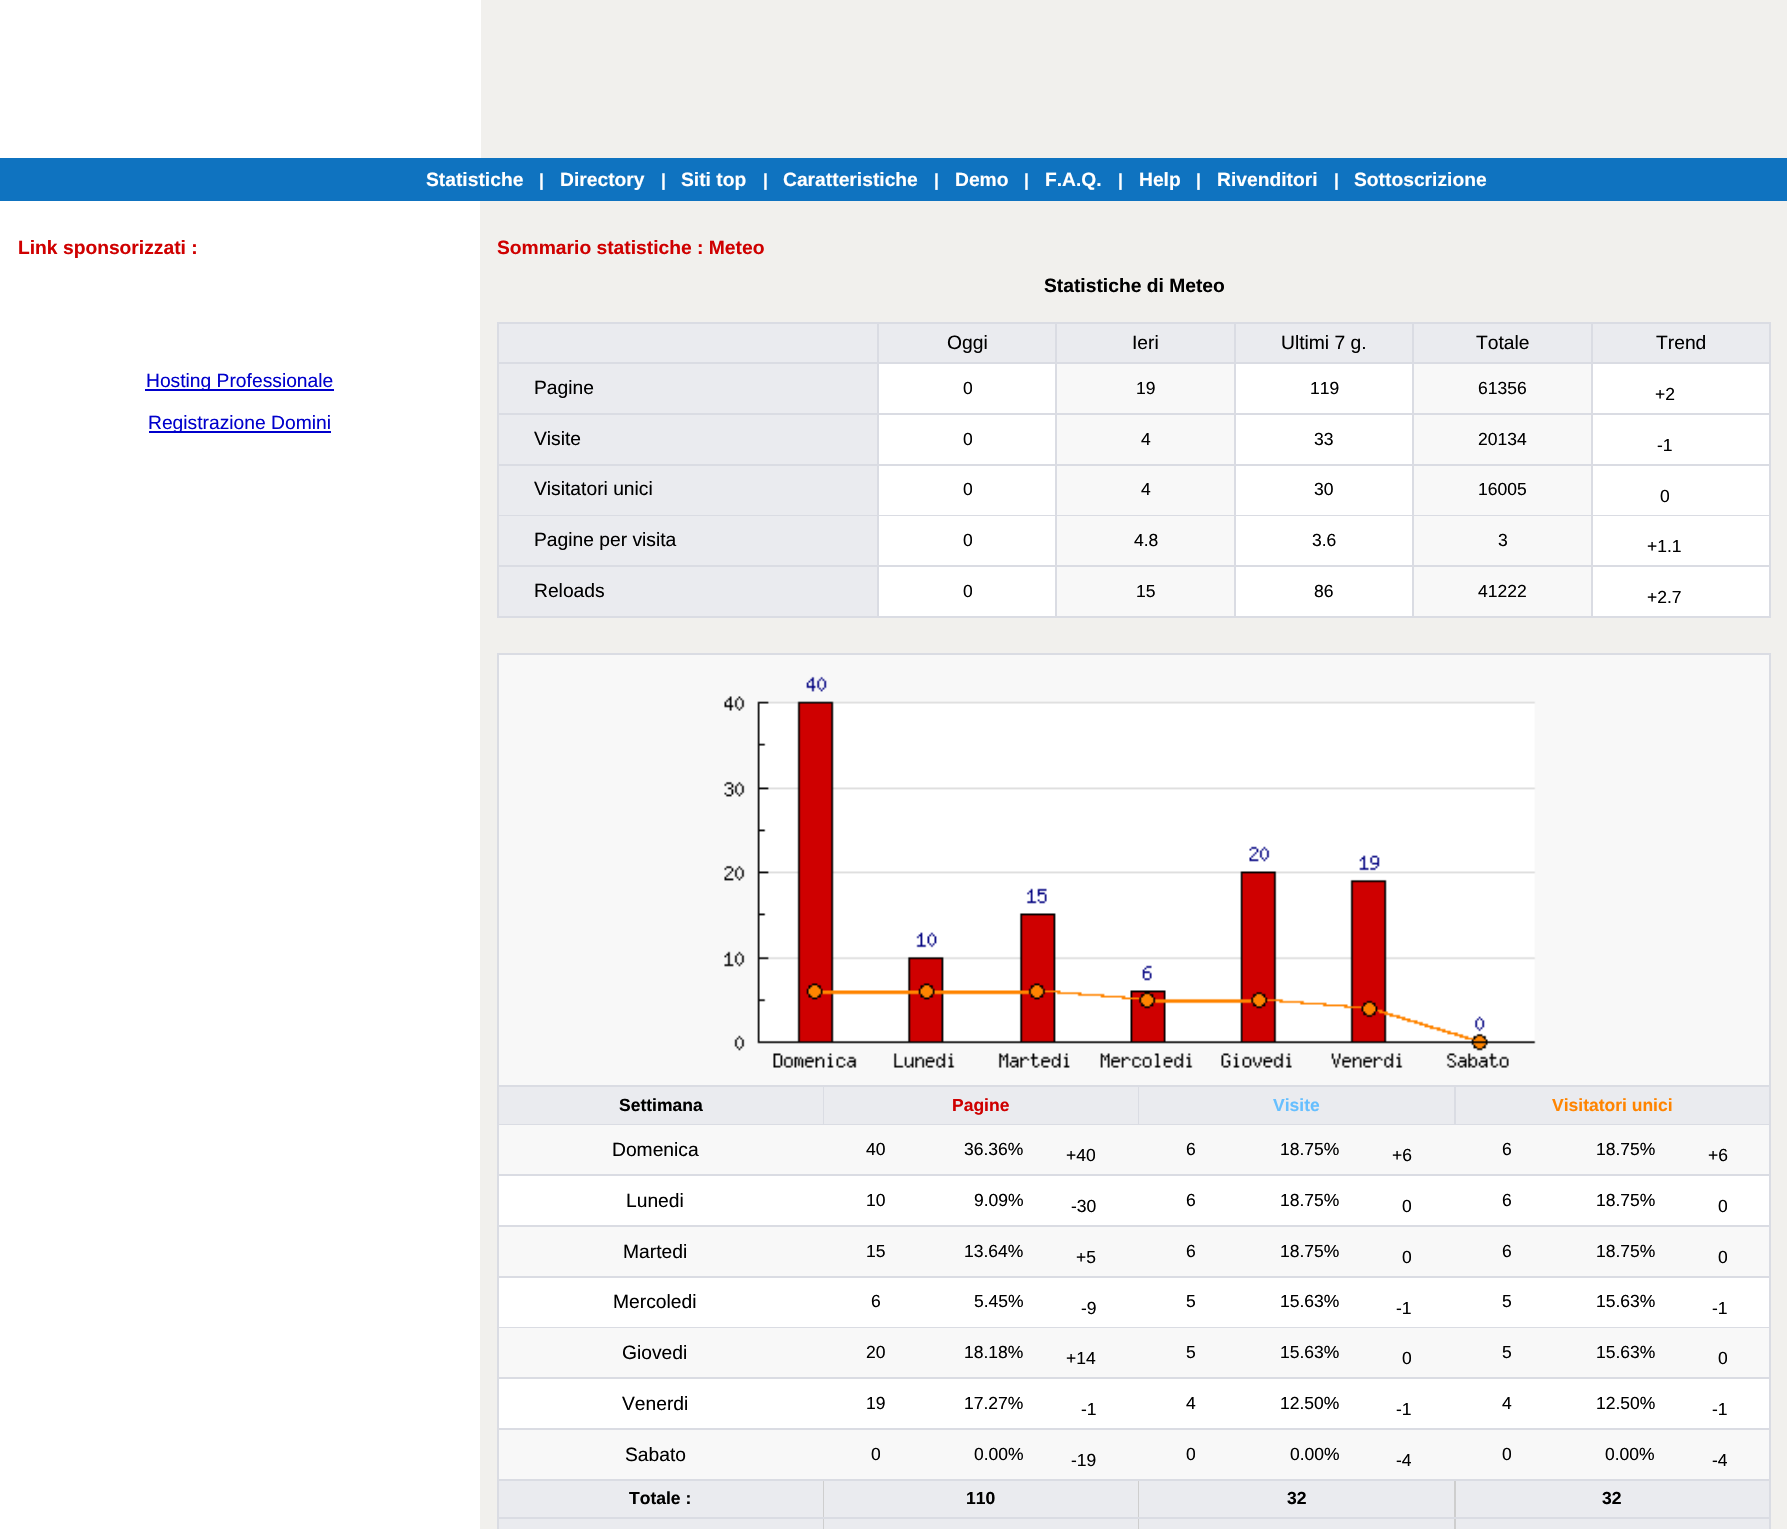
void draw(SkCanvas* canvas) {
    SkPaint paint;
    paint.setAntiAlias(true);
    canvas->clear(0xFFFFFFFF);
    paint.setColor(0xFFF1F0ED);
    canvas->drawRect(SkRect::MakeXYWH(481, 0, 1306, 158), paint);
    paint.setColor(0xFF0F73C0);
    canvas->drawRect(SkRect::MakeXYWH(0, 158, 1787, 43), paint);
    SkFont font1(fontMgr->matchFamilyStyle("Liberation Sans", SkFontStyle::Bold()), 19.25f);
    font1.setSubpixel(true);
    paint.setColor(0xFFFFFFFF);
    canvas->drawString("Statistiche", 426, 186, font1, paint);
    SkFont font2(fontMgr->matchFamilyStyle("Liberation Sans", SkFontStyle::Bold()), 17.5f);
    font2.setSubpixel(true);
    canvas->drawString("|", 539, 186, font2, paint);
    canvas->drawString("Directory", 560, 186, font1, paint);
    canvas->drawString("|", 661, 186, font2, paint);
    canvas->drawString("Siti top", 681, 186, font1, paint);
    canvas->drawString("|", 763, 186, font2, paint);
    canvas->drawString("Caratteristiche", 783, 186, font1, paint);
    canvas->drawString("|", 934, 186, font2, paint);
    canvas->drawString("Demo", 955, 186, font1, paint);
    canvas->drawString("|", 1024, 186, font2, paint);
    canvas->drawString("F.A.Q.", 1045, 186, font1, paint);
    canvas->drawString("|", 1118, 186, font2, paint);
    canvas->drawString("Help", 1139, 186, font1, paint);
    canvas->drawString("|", 1196, 186, font2, paint);
    canvas->drawString("Rivenditori", 1217, 186, font1, paint);
    canvas->drawString("|", 1334, 186, font2, paint);
    canvas->drawString("Sottoscrizione", 1354, 186, font1, paint);
    paint.setColor(0xFFCF0000);
    canvas->drawString("Link sponsorizzati :", 18, 254, font1, paint);
    paint.setColor(0xFF0000CC);
    canvas->drawRect(SkRect::MakeXYWH(145, 389, 189, 2), paint);
    SkFont font3(fontMgr->matchFamilyStyle("Liberation Sans", SkFontStyle::Normal()), 19.25f);
    font3.setSubpixel(true);
    canvas->drawString("Hosting Professionale", 146, 387, font3, paint);
    canvas->drawRect(SkRect::MakeXYWH(149, 431, 182, 2), paint);
    canvas->drawString("Registrazione Domini", 148, 429, font3, paint);
    paint.setColor(0xFFF1F0ED);
    canvas->drawRect(SkRect::MakeXYWH(480, 201, 1307, 1328), paint);
    paint.setColor(0xFFCF0000);
    canvas->drawString("Sommario statistiche : Meteo", 497, 254, font1, paint);
    paint.setColor(0xFF000000);
    canvas->drawString("Statistiche di Meteo", 1044, 292, font1, paint);
    paint.setColor(0xFFDADCE3);
    canvas->drawRect(SkRect::MakeXYWH(497, 322, 1274, 296), paint);
    paint.setColor(0xFFEAEBEF);
    canvas->drawRect(SkRect::MakeXYWH(499, 324, 378, 38), paint);
    canvas->drawRect(SkRect::MakeXYWH(879, 324, 176, 38), paint);
    paint.setColor(0xFF000000);
    canvas->drawString("Oggi", 947, 349, font3, paint);
    paint.setColor(0xFFEAEBEF);
    canvas->drawRect(SkRect::MakeXYWH(1057, 324, 177, 38), paint);
    paint.setColor(0xFF000000);
    canvas->drawString("Ieri", 1132, 349, font3, paint);
    paint.setColor(0xFFEAEBEF);
    canvas->drawRect(SkRect::MakeXYWH(1236, 324, 176, 38), paint);
    paint.setColor(0xFF000000);
    canvas->drawString("Ultimi 7 g.", 1281, 349, font3, paint);
    paint.setColor(0xFFEAEBEF);
    canvas->drawRect(SkRect::MakeXYWH(1414, 324, 177, 38), paint);
    paint.setColor(0xFF000000);
    canvas->drawString("Totale", 1476, 349, font3, paint);
    paint.setColor(0xFFEAEBEF);
    canvas->drawRect(SkRect::MakeXYWH(1593, 324, 176, 38), paint);
    paint.setColor(0xFF000000);
    canvas->drawString("Trend", 1656, 349, font3, paint);
    paint.setColor(0xFFEAEBEF);
    canvas->drawRect(SkRect::MakeXYWH(499, 364, 378, 49), paint);
    paint.setColor(0xFF000000);
    canvas->drawString("Pagine", 534, 394, font3, paint);
    paint.setColor(0xFFFFFFFF);
    canvas->drawRect(SkRect::MakeXYWH(879, 364, 176, 49), paint);
    SkFont font4(fontMgr->matchFamilyStyle("Liberation Sans", SkFontStyle::Normal()), 17.5f);
    font4.setSubpixel(true);
    paint.setColor(0xFF000000);
    canvas->drawString("0", 963, 394, font4, paint);
    paint.setColor(0xFFF8F8F8);
    canvas->drawRect(SkRect::MakeXYWH(1057, 364, 177, 49), paint);
    paint.setColor(0xFF000000);
    canvas->drawString("19", 1136, 394, font4, paint);
    paint.setColor(0xFFFFFFFF);
    canvas->drawRect(SkRect::MakeXYWH(1236, 364, 176, 49), paint);
    paint.setColor(0xFF000000);
    canvas->drawString("119", 1310, 394, font4, paint);
    paint.setColor(0xFFF8F8F8);
    canvas->drawRect(SkRect::MakeXYWH(1414, 364, 177, 49), paint);
    paint.setColor(0xFF000000);
    canvas->drawString("61356", 1478, 394, font4, paint);
    paint.setColor(0xFFFFFFFF);
    canvas->drawRect(SkRect::MakeXYWH(1593, 364, 176, 49), paint);
    paint.setColor(0xFF000000);
    canvas->drawString("+2", 1655, 400, font4, paint);
    paint.setColor(0xFFEAEBEF);
    canvas->drawRect(SkRect::MakeXYWH(499, 415, 378, 49), paint);
    paint.setColor(0xFF000000);
    canvas->drawString("Visite", 534, 445, font3, paint);
    paint.setColor(0xFFFFFFFF);
    canvas->drawRect(SkRect::MakeXYWH(879, 415, 176, 49), paint);
    paint.setColor(0xFF000000);
    canvas->drawString("0", 963, 445, font4, paint);
    paint.setColor(0xFFF8F8F8);
    canvas->drawRect(SkRect::MakeXYWH(1057, 415, 177, 49), paint);
    paint.setColor(0xFF000000);
    canvas->drawString("4", 1141, 445, font4, paint);
    paint.setColor(0xFFFFFFFF);
    canvas->drawRect(SkRect::MakeXYWH(1236, 415, 176, 49), paint);
    paint.setColor(0xFF000000);
    canvas->drawString("33", 1314, 445, font4, paint);
    paint.setColor(0xFFF8F8F8);
    canvas->drawRect(SkRect::MakeXYWH(1414, 415, 177, 49), paint);
    paint.setColor(0xFF000000);
    canvas->drawString("20134", 1478, 445, font4, paint);
    paint.setColor(0xFFFFFFFF);
    canvas->drawRect(SkRect::MakeXYWH(1593, 415, 176, 49), paint);
    paint.setColor(0xFF000000);
    canvas->drawString("-1", 1657, 451, font4, paint);
    paint.setColor(0xFFEAEBEF);
    canvas->drawRect(SkRect::MakeXYWH(499, 466, 378, 49), paint);
    paint.setColor(0xFF000000);
    canvas->drawString("Visitatori unici", 534, 495, font3, paint);
    paint.setColor(0xFFFFFFFF);
    canvas->drawRect(SkRect::MakeXYWH(879, 466, 176, 49), paint);
    paint.setColor(0xFF000000);
    canvas->drawString("0", 963, 495, font4, paint);
    paint.setColor(0xFFF8F8F8);
    canvas->drawRect(SkRect::MakeXYWH(1057, 466, 177, 49), paint);
    paint.setColor(0xFF000000);
    canvas->drawString("4", 1141, 495, font4, paint);
    paint.setColor(0xFFFFFFFF);
    canvas->drawRect(SkRect::MakeXYWH(1236, 466, 176, 49), paint);
    paint.setColor(0xFF000000);
    canvas->drawString("30", 1314, 495, font4, paint);
    paint.setColor(0xFFF8F8F8);
    canvas->drawRect(SkRect::MakeXYWH(1414, 466, 177, 49), paint);
    paint.setColor(0xFF000000);
    canvas->drawString("16005", 1478, 495, font4, paint);
    paint.setColor(0xFFFFFFFF);
    canvas->drawRect(SkRect::MakeXYWH(1593, 466, 176, 49), paint);
    paint.setColor(0xFF000000);
    canvas->drawString("0", 1660, 502, font4, paint);
    paint.setColor(0xFFEAEBEF);
    canvas->drawRect(SkRect::MakeXYWH(499, 516, 378, 49), paint);
    paint.setColor(0xFF000000);
    canvas->drawString("Pagine per visita", 534, 546, font3, paint);
    paint.setColor(0xFFFFFFFF);
    canvas->drawRect(SkRect::MakeXYWH(879, 516, 176, 49), paint);
    paint.setColor(0xFF000000);
    canvas->drawString("0", 963, 546, font4, paint);
    paint.setColor(0xFFF8F8F8);
    canvas->drawRect(SkRect::MakeXYWH(1057, 516, 177, 49), paint);
    paint.setColor(0xFF000000);
    canvas->drawString("4.8", 1134, 546, font4, paint);
    paint.setColor(0xFFFFFFFF);
    canvas->drawRect(SkRect::MakeXYWH(1236, 516, 176, 49), paint);
    paint.setColor(0xFF000000);
    canvas->drawString("3.6", 1312, 546, font4, paint);
    paint.setColor(0xFFF8F8F8);
    canvas->drawRect(SkRect::MakeXYWH(1414, 516, 177, 49), paint);
    paint.setColor(0xFF000000);
    canvas->drawString("3", 1498, 546, font4, paint);
    paint.setColor(0xFFFFFFFF);
    canvas->drawRect(SkRect::MakeXYWH(1593, 516, 176, 49), paint);
    paint.setColor(0xFF000000);
    canvas->drawString("+1.1", 1647, 552, font4, paint);
    paint.setColor(0xFFEAEBEF);
    canvas->drawRect(SkRect::MakeXYWH(499, 567, 378, 49), paint);
    paint.setColor(0xFF000000);
    canvas->drawString("Reloads", 534, 597, font3, paint);
    paint.setColor(0xFFFFFFFF);
    canvas->drawRect(SkRect::MakeXYWH(879, 567, 176, 49), paint);
    paint.setColor(0xFF000000);
    canvas->drawString("0", 963, 597, font4, paint);
    paint.setColor(0xFFF8F8F8);
    canvas->drawRect(SkRect::MakeXYWH(1057, 567, 177, 49), paint);
    paint.setColor(0xFF000000);
    canvas->drawString("15", 1136, 597, font4, paint);
    paint.setColor(0xFFFFFFFF);
    canvas->drawRect(SkRect::MakeXYWH(1236, 567, 176, 49), paint);
    paint.setColor(0xFF000000);
    canvas->drawString("86", 1314, 597, font4, paint);
    paint.setColor(0xFFF8F8F8);
    canvas->drawRect(SkRect::MakeXYWH(1414, 567, 177, 49), paint);
    paint.setColor(0xFF000000);
    canvas->drawString("41222", 1478, 597, font4, paint);
    paint.setColor(0xFFFFFFFF);
    canvas->drawRect(SkRect::MakeXYWH(1593, 567, 176, 49), paint);
    paint.setColor(0xFF000000);
    canvas->drawString("+2.7", 1647, 603, font4, paint);
    paint.setColor(0xFFDADCE3);
    canvas->drawRect(SkRect::MakeXYWH(497, 653, 1274, 876), paint);
    paint.setColor(0xFFF8F8F8);
    canvas->drawRect(SkRect::MakeXYWH(499, 655, 1270, 430), paint);
    canvas->drawImageRect(SkImages::DeferredFromEncodedData(SkData::MakeFromFileName("img1.png")), SkRect::MakeXYWH(724, 676, 812, 392), SkSamplingOptions());
    paint.setColor(0xFFEAEBEF);
    canvas->drawRect(SkRect::MakeXYWH(499, 1087, 324, 37), paint);
    paint.setColor(0xFF000000);
    canvas->drawString("Settimana", 619, 1111, font2, paint);
    paint.setColor(0xFFEAEBEF);
    canvas->drawRect(SkRect::MakeXYWH(824, 1087, 314, 37), paint);
    paint.setColor(0xFFCF0000);
    canvas->drawString("Pagine", 952, 1111, font2, paint);
    paint.setColor(0xFFEAEBEF);
    canvas->drawRect(SkRect::MakeXYWH(1139, 1087, 315, 37), paint);
    paint.setColor(0xFF66BFFF);
    canvas->drawString("Visite", 1273, 1111, font2, paint);
    paint.setColor(0xFFEAEBEF);
    canvas->drawRect(SkRect::MakeXYWH(1456, 1087, 313, 37), paint);
    paint.setColor(0xFFFF8400);
    canvas->drawString("Visitatori unici", 1552, 1111, font2, paint);
    paint.setColor(0xFFF8F8F8);
    canvas->drawRect(SkRect::MakeXYWH(499, 1125, 1270, 49), paint);
    paint.setColor(0xFF000000);
    canvas->drawString("Domenica", 612, 1156, font3, paint);
    canvas->drawString("40", 866, 1155, font4, paint);
    canvas->drawString("36.36%", 964, 1155, font4, paint);
    canvas->drawString("+40", 1066, 1161, font4, paint);
    canvas->drawString("6", 1186, 1155, font4, paint);
    canvas->drawString("18.75%", 1280, 1155, font4, paint);
    canvas->drawString("+6", 1392, 1161, font4, paint);
    canvas->drawString("6", 1502, 1155, font4, paint);
    canvas->drawString("18.75%", 1596, 1155, font4, paint);
    canvas->drawString("+6", 1708, 1161, font4, paint);
    paint.setColor(0xFFFFFFFF);
    canvas->drawRect(SkRect::MakeXYWH(499, 1176, 1270, 49), paint);
    paint.setColor(0xFF000000);
    canvas->drawString("Lunedi", 626, 1207, font3, paint);
    canvas->drawString("10", 866, 1206, font4, paint);
    canvas->drawString("9.09%", 974, 1206, font4, paint);
    canvas->drawString("-30", 1071, 1212, font4, paint);
    canvas->drawString("6", 1186, 1206, font4, paint);
    canvas->drawString("18.75%", 1280, 1206, font4, paint);
    canvas->drawString("0", 1402, 1212, font4, paint);
    canvas->drawString("6", 1502, 1206, font4, paint);
    canvas->drawString("18.75%", 1596, 1206, font4, paint);
    canvas->drawString("0", 1718, 1212, font4, paint);
    paint.setColor(0xFFF8F8F8);
    canvas->drawRect(SkRect::MakeXYWH(499, 1227, 1270, 49), paint);
    paint.setColor(0xFF000000);
    canvas->drawString("Martedi", 623, 1258, font3, paint);
    canvas->drawString("15", 866, 1257, font4, paint);
    canvas->drawString("13.64%", 964, 1257, font4, paint);
    canvas->drawString("+5", 1076, 1263, font4, paint);
    canvas->drawString("6", 1186, 1257, font4, paint);
    canvas->drawString("18.75%", 1280, 1257, font4, paint);
    canvas->drawString("0", 1402, 1263, font4, paint);
    canvas->drawString("6", 1502, 1257, font4, paint);
    canvas->drawString("18.75%", 1596, 1257, font4, paint);
    canvas->drawString("0", 1718, 1263, font4, paint);
    paint.setColor(0xFFFFFFFF);
    canvas->drawRect(SkRect::MakeXYWH(499, 1278, 1270, 49), paint);
    paint.setColor(0xFF000000);
    canvas->drawString("Mercoledi", 613, 1308, font3, paint);
    canvas->drawString("6", 871, 1307, font4, paint);
    canvas->drawString("5.45%", 974, 1307, font4, paint);
    canvas->drawString("-9", 1081, 1314, font4, paint);
    canvas->drawString("5", 1186, 1307, font4, paint);
    canvas->drawString("15.63%", 1280, 1307, font4, paint);
    canvas->drawString("-1", 1396, 1314, font4, paint);
    canvas->drawString("5", 1502, 1307, font4, paint);
    canvas->drawString("15.63%", 1596, 1307, font4, paint);
    canvas->drawString("-1", 1712, 1314, font4, paint);
    paint.setColor(0xFFF8F8F8);
    canvas->drawRect(SkRect::MakeXYWH(499, 1328, 1270, 49), paint);
    paint.setColor(0xFF000000);
    canvas->drawString("Giovedi", 622, 1359, font3, paint);
    canvas->drawString("20", 866, 1358, font4, paint);
    canvas->drawString("18.18%", 964, 1358, font4, paint);
    canvas->drawString("+14", 1066, 1364, font4, paint);
    canvas->drawString("5", 1186, 1358, font4, paint);
    canvas->drawString("15.63%", 1280, 1358, font4, paint);
    canvas->drawString("0", 1402, 1364, font4, paint);
    canvas->drawString("5", 1502, 1358, font4, paint);
    canvas->drawString("15.63%", 1596, 1358, font4, paint);
    canvas->drawString("0", 1718, 1364, font4, paint);
    paint.setColor(0xFFFFFFFF);
    canvas->drawRect(SkRect::MakeXYWH(499, 1379, 1270, 49), paint);
    paint.setColor(0xFF000000);
    canvas->drawString("Venerdi", 622, 1410, font3, paint);
    canvas->drawString("19", 866, 1409, font4, paint);
    canvas->drawString("17.27%", 964, 1409, font4, paint);
    canvas->drawString("-1", 1081, 1415, font4, paint);
    canvas->drawString("4", 1186, 1409, font4, paint);
    canvas->drawString("12.50%", 1280, 1409, font4, paint);
    canvas->drawString("-1", 1396, 1415, font4, paint);
    canvas->drawString("4", 1502, 1409, font4, paint);
    canvas->drawString("12.50%", 1596, 1409, font4, paint);
    canvas->drawString("-1", 1712, 1415, font4, paint);
    paint.setColor(0xFFF8F8F8);
    canvas->drawRect(SkRect::MakeXYWH(499, 1430, 1270, 49), paint);
    paint.setColor(0xFF000000);
    canvas->drawString("Sabato", 625, 1461, font3, paint);
    canvas->drawString("0", 871, 1460, font4, paint);
    canvas->drawString("0.00%", 974, 1460, font4, paint);
    canvas->drawString("-19", 1071, 1466, font4, paint);
    canvas->drawString("0", 1186, 1460, font4, paint);
    canvas->drawString("0.00%", 1290, 1460, font4, paint);
    canvas->drawString("-4", 1396, 1466, font4, paint);
    canvas->drawString("0", 1502, 1460, font4, paint);
    canvas->drawString("0.00%", 1605, 1460, font4, paint);
    canvas->drawString("-4", 1712, 1466, font4, paint);
    paint.setColor(0xFFCECECE);
    canvas->drawRect(SkRect::MakeXYWH(823, 1481, 633, 36), paint);
    paint.setColor(0xFFEAEBEF);
    canvas->drawRect(SkRect::MakeXYWH(499, 1481, 324, 36), paint);
    paint.setColor(0xFF000000);
    canvas->drawString("Totale :", 629, 1504, font2, paint);
    paint.setColor(0xFFEAEBEF);
    canvas->drawRect(SkRect::MakeXYWH(824, 1481, 314, 36), paint);
    paint.setColor(0xFF000000);
    canvas->drawString("110", 966, 1504, font2, paint);
    paint.setColor(0xFFEAEBEF);
    canvas->drawRect(SkRect::MakeXYWH(1139, 1481, 315, 36), paint);
    paint.setColor(0xFF000000);
    canvas->drawString("32", 1287, 1504, font2, paint);
    paint.setColor(0xFFEAEBEF);
    canvas->drawRect(SkRect::MakeXYWH(1456, 1481, 313, 36), paint);
    paint.setColor(0xFF000000);
    canvas->drawString("32", 1602, 1504, font2, paint);
    paint.setColor(0xFFCECECE);
    canvas->drawRect(SkRect::MakeXYWH(823, 1519, 633, 10), paint);
    paint.setColor(0xFFEAEBEF);
    canvas->drawRect(SkRect::MakeXYWH(499, 1519, 324, 10), paint);
    canvas->drawRect(SkRect::MakeXYWH(824, 1519, 314, 10), paint);
    canvas->drawRect(SkRect::MakeXYWH(1139, 1519, 315, 10), paint);
    canvas->drawRect(SkRect::MakeXYWH(1456, 1519, 313, 10), paint);
}
